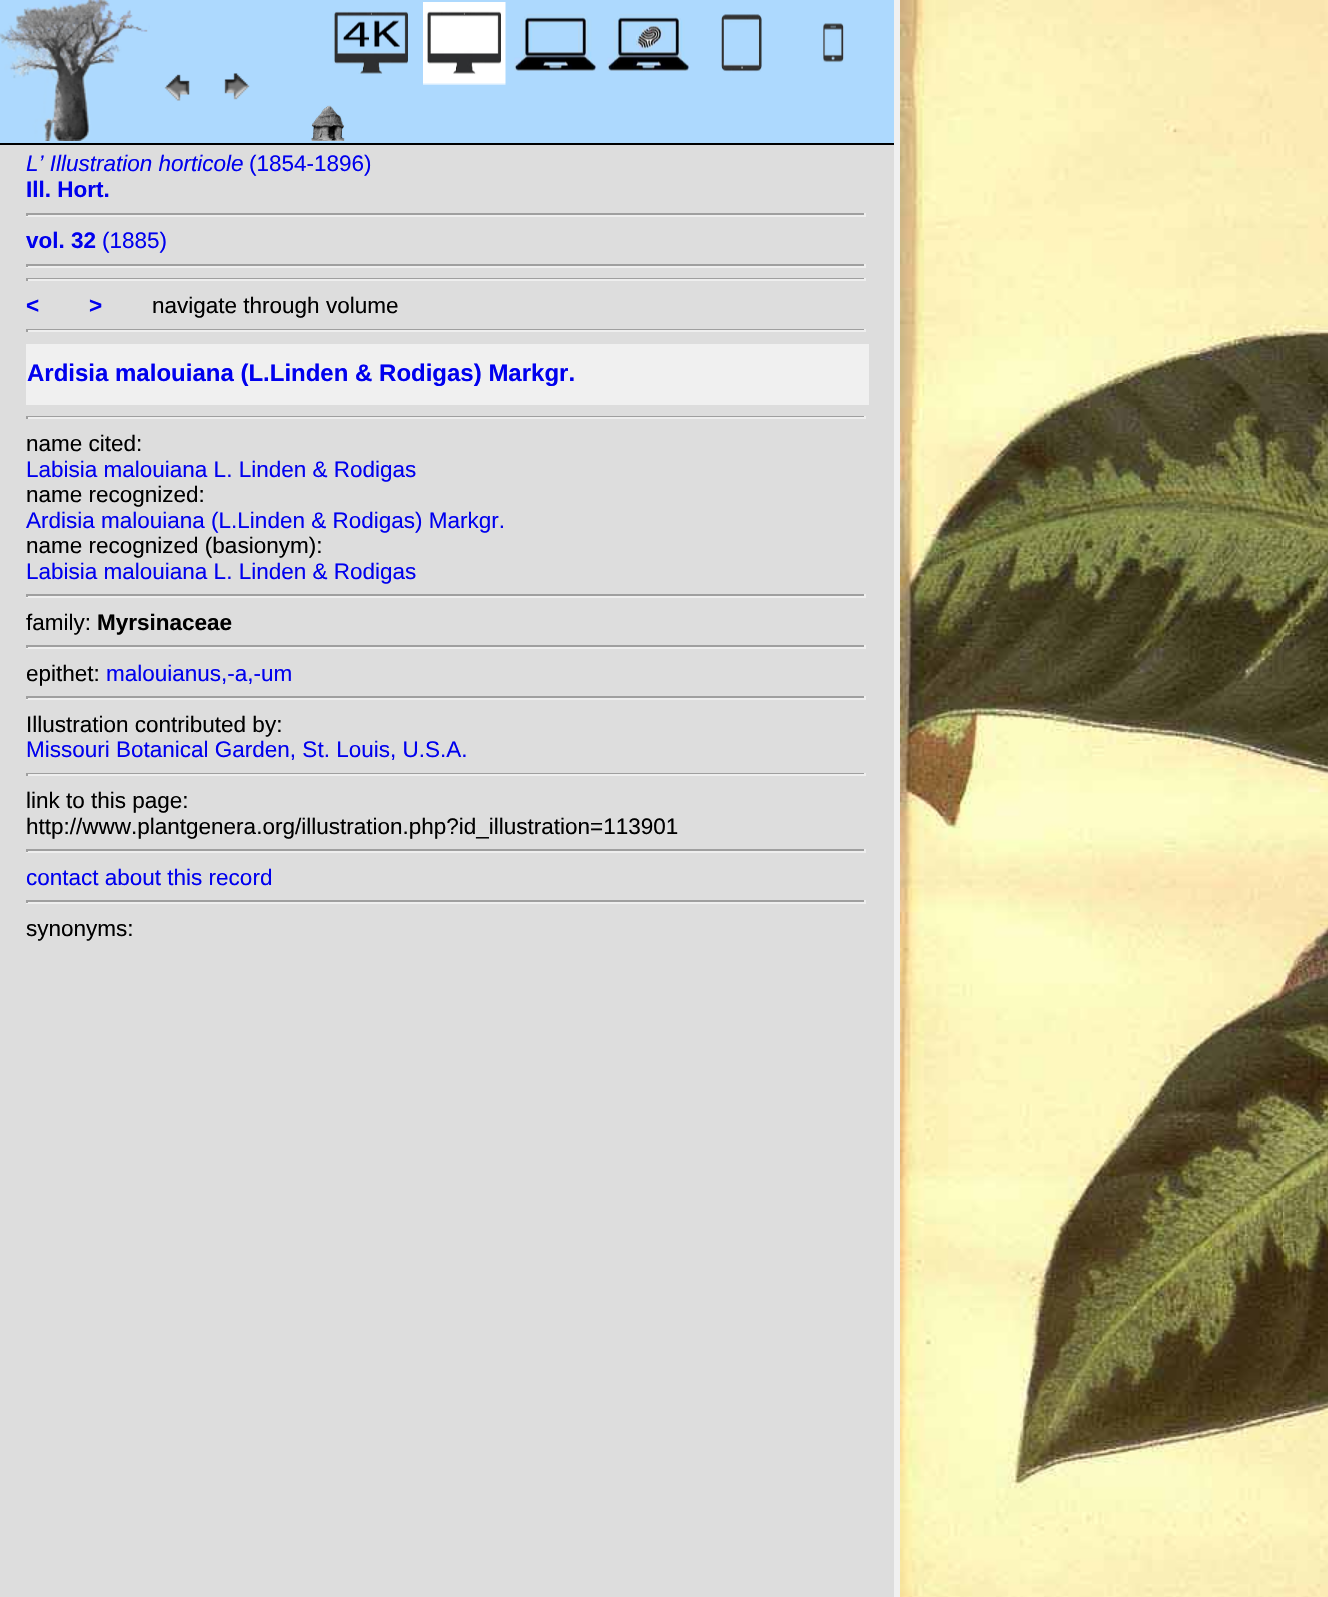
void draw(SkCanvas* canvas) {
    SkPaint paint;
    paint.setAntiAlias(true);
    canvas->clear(0xFFF0F0F0);
    paint.setColor(0xFFDDDDDD);
    canvas->drawRect(SkRect::MakeXYWH(0, 145, 894, 1452), paint);
    paint.setColor(0xFFADD9FE);
    canvas->drawRect(SkRect::MakeXYWH(0, 0, 894, 143), paint);
    paint.setColor(0xFF000000);
    canvas->drawRect(SkRect::MakeXYWH(0, 143, 894, 2), paint);
    canvas->drawImageRect(SkImages::DeferredFromEncodedData(SkData::MakeFromFileName("img1.png")), SkRect::MakeXYWH(0, 0, 150, 141), SkSamplingOptions());
    canvas->drawImageRect(SkImages::DeferredFromEncodedData(SkData::MakeFromFileName("img2.png")), SkRect::MakeXYWH(164, 74, 26, 27), SkSamplingOptions());
    canvas->drawImageRect(SkImages::DeferredFromEncodedData(SkData::MakeFromFileName("img3.png")), SkRect::MakeXYWH(224, 73, 26, 27), SkSamplingOptions());
    canvas->drawImageRect(SkImages::DeferredFromEncodedData(SkData::MakeFromFileName("img4.png")), SkRect::MakeXYWH(333, 11, 75, 63), SkSamplingOptions());
    canvas->drawImageRect(SkImages::DeferredFromEncodedData(SkData::MakeFromFileName("img5.png")), SkRect::MakeXYWH(423, 2, 83, 83), SkSamplingOptions());
    canvas->drawImageRect(SkImages::DeferredFromEncodedData(SkData::MakeFromFileName("img6.png")), SkRect::MakeXYWH(514, 14, 83, 57), SkSamplingOptions());
    canvas->drawImageRect(SkImages::DeferredFromEncodedData(SkData::MakeFromFileName("img7.png")), SkRect::MakeXYWH(607, 14, 83, 57), SkSamplingOptions());
    canvas->drawImageRect(SkImages::DeferredFromEncodedData(SkData::MakeFromFileName("img8.png")), SkRect::MakeXYWH(721, 14, 41, 58), SkSamplingOptions());
    canvas->drawImageRect(SkImages::DeferredFromEncodedData(SkData::MakeFromFileName("img9.png")), SkRect::MakeXYWH(823, 23, 21, 40), SkSamplingOptions());
    canvas->drawImageRect(SkImages::DeferredFromEncodedData(SkData::MakeFromFileName("img10.png")), SkRect::MakeXYWH(311, 105, 34, 36), SkSamplingOptions());
    SkFont font1(fontMgr->matchFamilyStyle("Liberation Sans", SkFontStyle::Italic()), 22.5f);
    font1.setSubpixel(true);
    paint.setColor(0xFF0000EE);
    canvas->drawString("L’ Illustration horticole", 26, 171, font1, paint);
    SkFont font2(fontMgr->matchFamilyStyle("Liberation Sans", SkFontStyle::Normal()), 22.5f);
    font2.setSubpixel(true);
    canvas->drawString("(1854-1896)", 249, 171, font2, paint);
    SkFont font3(fontMgr->matchFamilyStyle("Liberation Sans", SkFontStyle::Bold()), 22.5f);
    font3.setSubpixel(true);
    canvas->drawString("Ill. Hort.", 26, 197, font3, paint);
    paint.setColor(0xFF9F9F9F);
    canvas->drawRect(SkRect::MakeXYWH(26, 213, 840, 2), paint);
    paint.setColor(0xFFEEEEEE);
    canvas->drawRect(SkRect::MakeXYWH(864, 213, 2, 3), paint);
    canvas->drawRect(SkRect::MakeXYWH(26, 215, 840, 2), paint);
    paint.setColor(0xFF9F9F9F);
    canvas->drawRect(SkRect::MakeXYWH(26, 213, 2, 3), paint);
    paint.setColor(0xFF0000EE);
    canvas->drawString("vol. 32", 26, 248, font3, paint);
    canvas->drawString("(1885)", 102, 248, font2, paint);
    paint.setColor(0xFF9F9F9F);
    canvas->drawRect(SkRect::MakeXYWH(26, 264, 840, 2), paint);
    paint.setColor(0xFFEEEEEE);
    canvas->drawRect(SkRect::MakeXYWH(864, 264, 2, 3), paint);
    canvas->drawRect(SkRect::MakeXYWH(26, 266, 840, 2), paint);
    paint.setColor(0xFF9F9F9F);
    canvas->drawRect(SkRect::MakeXYWH(26, 264, 2, 3), paint);
    canvas->drawRect(SkRect::MakeXYWH(26, 278, 840, 1), paint);
    paint.setColor(0xFFEEEEEE);
    canvas->drawRect(SkRect::MakeXYWH(864, 278, 2, 3), paint);
    canvas->drawRect(SkRect::MakeXYWH(26, 279, 840, 2), paint);
    paint.setColor(0xFF9F9F9F);
    canvas->drawRect(SkRect::MakeXYWH(26, 278, 2, 3), paint);
    paint.setColor(0xFF0000EE);
    canvas->drawString("<", 26, 313, font3, paint);
    canvas->drawString(">", 89, 313, font3, paint);
    paint.setColor(0xFF000000);
    canvas->drawString("navigate through volume", 152, 313, font2, paint);
    paint.setColor(0xFF9F9F9F);
    canvas->drawRect(SkRect::MakeXYWH(26, 329, 840, 1), paint);
    paint.setColor(0xFFEEEEEE);
    canvas->drawRect(SkRect::MakeXYWH(864, 329, 2, 3), paint);
    canvas->drawRect(SkRect::MakeXYWH(26, 330, 840, 2), paint);
    paint.setColor(0xFF9F9F9F);
    canvas->drawRect(SkRect::MakeXYWH(26, 329, 2, 3), paint);
    paint.setColor(0xFFF0F0F0);
    canvas->drawRect(SkRect::MakeXYWH(26, 344, 843, 61), paint);
    SkFont font4(fontMgr->matchFamilyStyle("Liberation Sans", SkFontStyle::Bold()), 24);
    font4.setSubpixel(true);
    paint.setColor(0xFF0000EE);
    canvas->drawString("Ardisia malouiana (L.Linden & Rodigas) Markgr.", 27, 381, font4, paint);
    paint.setColor(0xFF9F9F9F);
    canvas->drawRect(SkRect::MakeXYWH(26, 416, 840, 1), paint);
    paint.setColor(0xFFEEEEEE);
    canvas->drawRect(SkRect::MakeXYWH(864, 416, 2, 3), paint);
    canvas->drawRect(SkRect::MakeXYWH(26, 417, 840, 2), paint);
    paint.setColor(0xFF9F9F9F);
    canvas->drawRect(SkRect::MakeXYWH(26, 416, 2, 3), paint);
    paint.setColor(0xFF000000);
    canvas->drawString("name cited:", 26, 451, font2, paint);
    paint.setColor(0xFF0000EE);
    canvas->drawString("Labisia malouiana L. Linden & Rodigas", 26, 477, font2, paint);
    paint.setColor(0xFF000000);
    canvas->drawString("name recognized:", 26, 502, font2, paint);
    paint.setColor(0xFF0000EE);
    canvas->drawString("Ardisia malouiana (L.Linden & Rodigas) Markgr.", 26, 528, font2, paint);
    paint.setColor(0xFF000000);
    canvas->drawString("name recognized (basionym):", 26, 553, font2, paint);
    paint.setColor(0xFF0000EE);
    canvas->drawString("Labisia malouiana L. Linden & Rodigas", 26, 579, font2, paint);
    paint.setColor(0xFF9F9F9F);
    canvas->drawRect(SkRect::MakeXYWH(26, 594, 840, 2), paint);
    paint.setColor(0xFFEEEEEE);
    canvas->drawRect(SkRect::MakeXYWH(864, 594, 2, 3), paint);
    canvas->drawRect(SkRect::MakeXYWH(26, 596, 840, 2), paint);
    paint.setColor(0xFF9F9F9F);
    canvas->drawRect(SkRect::MakeXYWH(26, 594, 2, 3), paint);
    paint.setColor(0xFF000000);
    canvas->drawString("family:", 26, 630, font2, paint);
    canvas->drawString("Myrsinaceae", 97, 630, font3, paint);
    paint.setColor(0xFF9F9F9F);
    canvas->drawRect(SkRect::MakeXYWH(26, 645, 840, 2), paint);
    paint.setColor(0xFFEEEEEE);
    canvas->drawRect(SkRect::MakeXYWH(864, 645, 2, 3), paint);
    canvas->drawRect(SkRect::MakeXYWH(26, 647, 840, 2), paint);
    paint.setColor(0xFF9F9F9F);
    canvas->drawRect(SkRect::MakeXYWH(26, 645, 2, 3), paint);
    paint.setColor(0xFF000000);
    canvas->drawString("epithet:", 26, 681, font2, paint);
    paint.setColor(0xFF0000EE);
    canvas->drawString("malouianus,-a,-um", 106, 681, font2, paint);
    paint.setColor(0xFF9F9F9F);
    canvas->drawRect(SkRect::MakeXYWH(26, 696, 840, 2), paint);
    paint.setColor(0xFFEEEEEE);
    canvas->drawRect(SkRect::MakeXYWH(864, 696, 2, 3), paint);
    canvas->drawRect(SkRect::MakeXYWH(26, 698, 840, 2), paint);
    paint.setColor(0xFF9F9F9F);
    canvas->drawRect(SkRect::MakeXYWH(26, 696, 2, 3), paint);
    paint.setColor(0xFF000000);
    canvas->drawString("Illustration contributed by:", 26, 732, font2, paint);
    paint.setColor(0xFF0000EE);
    canvas->drawString("Missouri Botanical Garden, St. Louis, U.S.A.", 26, 757, font2, paint);
    paint.setColor(0xFF9F9F9F);
    canvas->drawRect(SkRect::MakeXYWH(26, 773, 840, 1), paint);
    paint.setColor(0xFFEEEEEE);
    canvas->drawRect(SkRect::MakeXYWH(864, 773, 2, 3), paint);
    canvas->drawRect(SkRect::MakeXYWH(26, 774, 840, 2), paint);
    paint.setColor(0xFF9F9F9F);
    canvas->drawRect(SkRect::MakeXYWH(26, 773, 2, 3), paint);
    paint.setColor(0xFF000000);
    canvas->drawString("link to this page:", 26, 808, font2, paint);
    canvas->drawString("http://www.plantgenera.org/illustration.php?id_illustration=113901", 26, 834, font2, paint);
    paint.setColor(0xFF9F9F9F);
    canvas->drawRect(SkRect::MakeXYWH(26, 849, 840, 2), paint);
    paint.setColor(0xFFEEEEEE);
    canvas->drawRect(SkRect::MakeXYWH(864, 849, 2, 3), paint);
    canvas->drawRect(SkRect::MakeXYWH(26, 851, 840, 2), paint);
    paint.setColor(0xFF9F9F9F);
    canvas->drawRect(SkRect::MakeXYWH(26, 849, 2, 3), paint);
    paint.setColor(0xFF0000EE);
    canvas->drawString("contact about this record", 26, 885, font2, paint);
    paint.setColor(0xFF9F9F9F);
    canvas->drawRect(SkRect::MakeXYWH(26, 900, 840, 2), paint);
    paint.setColor(0xFFEEEEEE);
    canvas->drawRect(SkRect::MakeXYWH(864, 900, 2, 3), paint);
    canvas->drawRect(SkRect::MakeXYWH(26, 902, 840, 2), paint);
    paint.setColor(0xFF9F9F9F);
    canvas->drawRect(SkRect::MakeXYWH(26, 900, 2, 3), paint);
    paint.setColor(0xFF000000);
    canvas->drawString("synonyms:", 26, 936, font2, paint);
    canvas->drawImageRect(SkImages::DeferredFromEncodedData(SkData::MakeFromFileName("img11.png")), SkRect::MakeXYWH(900, 0, 428, 1597), SkSamplingOptions());
}
